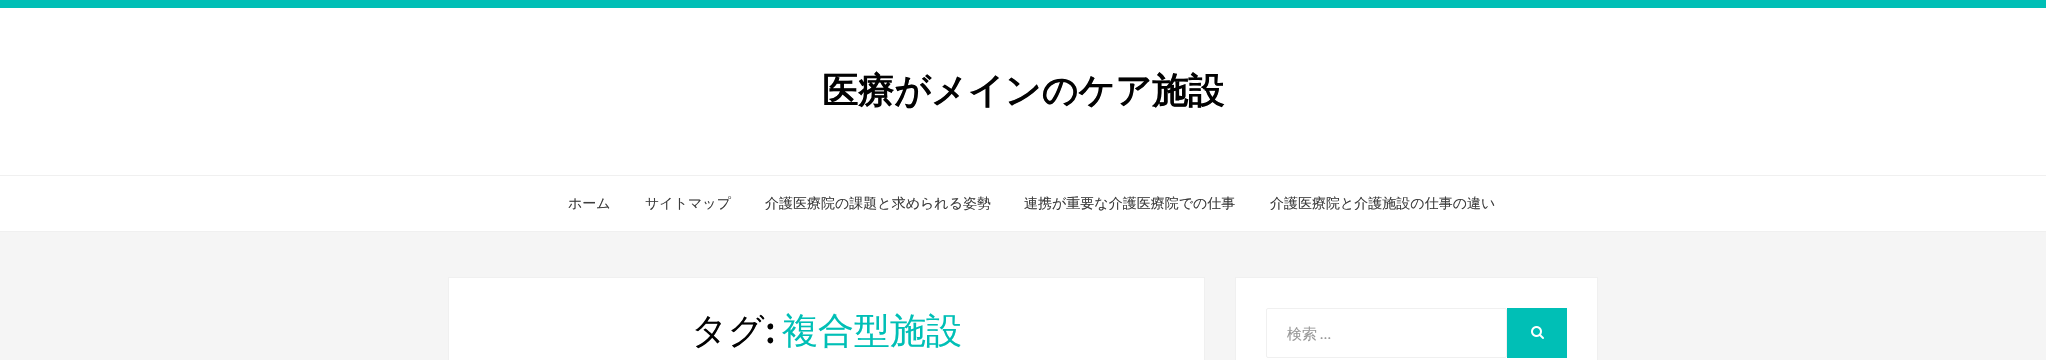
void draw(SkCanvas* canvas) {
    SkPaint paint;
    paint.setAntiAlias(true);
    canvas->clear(0xFFF5F5F5);
    paint.setColor(0xFFFFFFFF);
    canvas->drawRect(SkRect::MakeXYWH(0, 8, 2046, 167), paint);
    paint.setColor(0xFF00BFB6);
    canvas->drawRect(SkRect::MakeXYWH(0, 0, 2046, 8), paint);
    SkFont font1(fontMgr->matchFamilyStyle("WenQuanYi Zen Hei", SkFontStyle::Bold()), 36);
    font1.setSubpixel(true);
    paint.setColor(0xFF020202);
    canvas->drawString("医療がメインのケア施設", 822, 103, font1, paint);
    paint.setColor(0xFFFFFFFF);
    canvas->drawRect(SkRect::MakeXYWH(0, 176, 2046, 55), paint);
    paint.setColor(0xFFF0F0F0);
    canvas->drawRect(SkRect::MakeXYWH(0, 175, 2046, 1), paint);
    canvas->drawRect(SkRect::MakeXYWH(0, 231, 2046, 1), paint);
    SkFont font2(fontMgr->matchFamilyStyle("WenQuanYi Zen Hei", SkFontStyle(500, SkFontStyle::kNormal_Width, SkFontStyle::kUpright_Slant)), 14);
    font2.setSubpixel(true);
    paint.setColor(0xFF3D3D3D);
    canvas->drawString("ホーム", 568, 208, font2, paint);
    canvas->drawString("サイトマップ", 645, 208, font2, paint);
    canvas->drawString("介護医療院の課題と求められる姿勢", 765, 208, font2, paint);
    canvas->drawString("連携が重要な介護医療院での仕事", 1024, 208, font2, paint);
    canvas->drawString("介護医療院と介護施設の仕事の違い", 1270, 208, font2, paint);
    paint.setColor(0xFFFFFFFF);
    canvas->drawRect(SkRect::MakeXYWH(448.5f, 277.5f, 756, 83), paint);
    paint.setStyle(SkPaint::kStroke_Style);
    paint.setStrokeWidth(1);
    paint.setColor(0xFFF0F0F0);
    canvas->drawRect(SkRect::MakeXYWH(448.5f, 277.5f, 756, 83), paint);
    SkFont font3(fontMgr->matchFamilyStyle("WenQuanYi Zen Hei", SkFontStyle(500, SkFontStyle::kNormal_Width, SkFontStyle::kUpright_Slant)), 36);
    font3.setSubpixel(true);
    paint.setStyle(SkPaint::kFill_Style);
    paint.setColor(0xFF020202);
    canvas->drawString("タグ", 691, 343, font3, paint);
    SkFont font4(fontMgr->matchFamilyStyle("Merriweather Sans", SkFontStyle::Normal()), 36);
    font4.setSubpixel(true);
    canvas->drawString(":", 765, 343, font4, paint);
    paint.setColor(0xFF00BFB6);
    canvas->drawString("複合型施設", 782, 343, font3, paint);
    paint.setColor(0xFFFFFFFF);
    canvas->drawRect(SkRect::MakeXYWH(1235.5f, 277.5f, 362, 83), paint);
    paint.setStyle(SkPaint::kStroke_Style);
    paint.setColor(0xFFF0F0F0);
    canvas->drawRect(SkRect::MakeXYWH(1235.5f, 277.5f, 362, 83), paint);
    canvas->drawRoundRect(SkRect::MakeXYWH(1266.5f, 308.5f, 240, 49), 1.5f, 1.5f, paint);
    SkFont font5(fontMgr->matchFamilyStyle("WenQuanYi Zen Hei", SkFontStyle(500, SkFontStyle::kNormal_Width, SkFontStyle::kUpright_Slant)), 15);
    font5.setSubpixel(true);
    paint.setStyle(SkPaint::kFill_Style);
    paint.setColor(0xFF999999);
    canvas->drawString("検索", 1287, 339, font5, paint);
    SkFont font6(fontMgr->matchFamilyStyle("Lato", SkFontStyle::Normal()), 15);
    font6.setSubpixel(true);
    canvas->drawString("…", 1320, 339, font6, paint);
    paint.setColor(0xFF00BFB6);
    canvas->drawRect(SkRect::MakeXYWH(1507, 308, 60, 50), paint);
    canvas->drawImageRect(SkImages::DeferredFromEncodedData(SkData::MakeFromFileName("img1.png")), SkRect::MakeXYWH(1531, 326, 13, 13), SkSamplingOptions());
}
